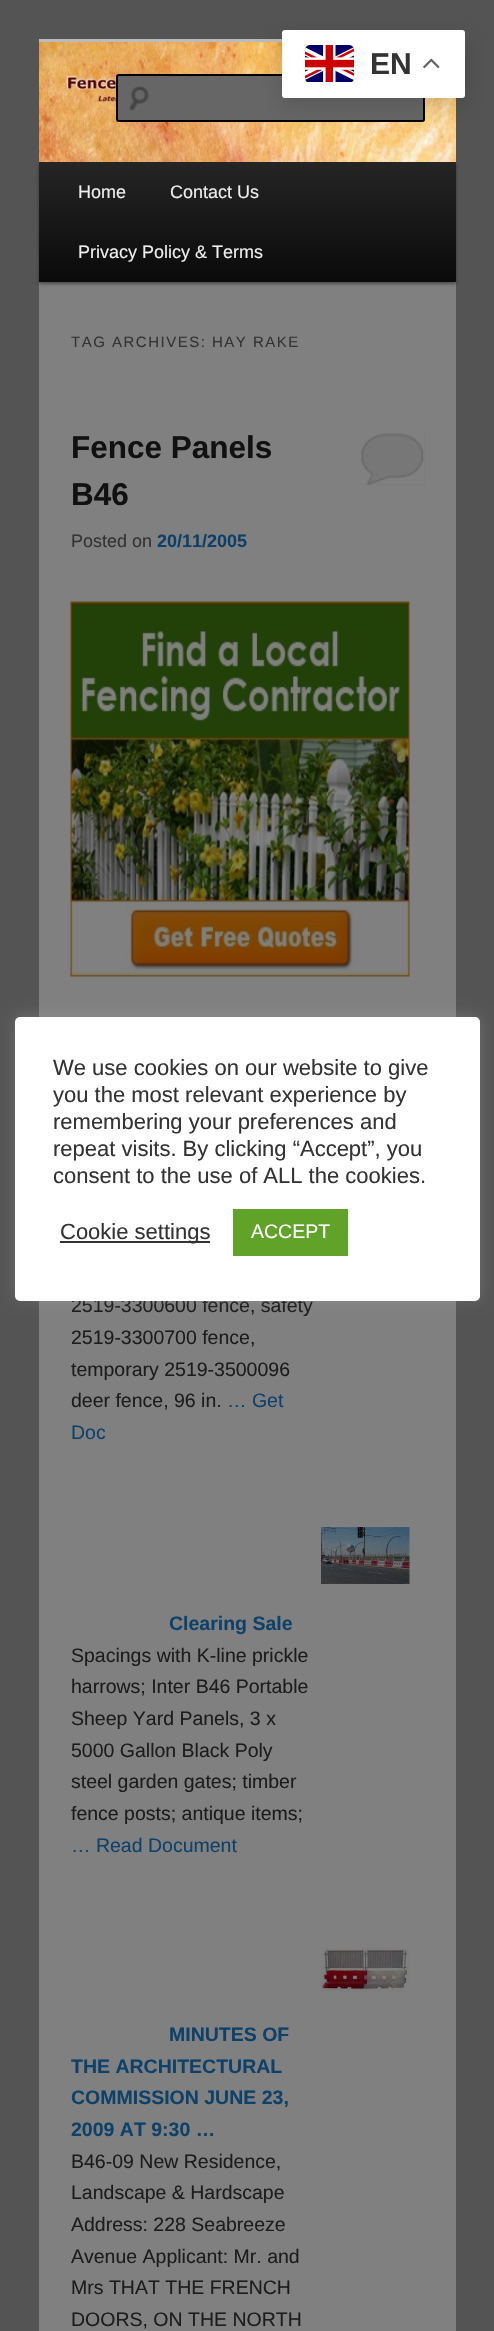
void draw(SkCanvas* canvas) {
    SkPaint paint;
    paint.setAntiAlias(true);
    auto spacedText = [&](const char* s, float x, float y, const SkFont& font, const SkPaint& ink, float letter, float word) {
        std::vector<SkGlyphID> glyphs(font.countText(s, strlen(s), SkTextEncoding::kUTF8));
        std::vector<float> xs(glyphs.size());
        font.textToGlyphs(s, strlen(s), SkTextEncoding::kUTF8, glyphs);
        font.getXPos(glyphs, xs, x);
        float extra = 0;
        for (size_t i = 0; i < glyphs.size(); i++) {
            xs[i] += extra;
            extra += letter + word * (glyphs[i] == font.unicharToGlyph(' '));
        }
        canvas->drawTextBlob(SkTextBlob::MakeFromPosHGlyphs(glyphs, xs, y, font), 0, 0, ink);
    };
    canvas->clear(0xFF545454);
    paint.setColor(0xFFBBBBBB);
    canvas->drawRect(SkRect::MakeXYWH(39, 39, 243, 3), paint);
    paint.setColor(0xFF808080);
    canvas->drawRect(SkRect::MakeXYWH(39, 282, 417, 2049), paint);
    paint.setColor(0x66000000);
    paint.setMaskFilter(SkMaskFilter::MakeBlur(kNormal_SkBlurStyle, 1.5f));
    canvas->drawRect(SkRect::MakeXYWH(39, 164, 417, 120), paint);
    paint.setMaskFilter(nullptr);
    canvas->drawImageRect(SkImages::DeferredFromEncodedData(SkData::MakeFromFileName("img3.png")), SkRect::MakeXYWH(39, 42, 417, 120), SkSamplingOptions());
    paint.setColor(0xFF666666);
    canvas->drawRoundRect(SkRect::MakeXYWH(116, 74, 309, 48), 3, 3, paint);
    canvas->drawImageRect(SkImages::DeferredFromEncodedData(SkData::MakeFromFileName("img4.png")), SkRect::MakeXYWH(129, 86, 20, 25), SkSamplingOptions());
    paint.setStyle(SkPaint::kStroke_Style);
    paint.setStrokeWidth(2);
    paint.setColor(0xFF000000);
    canvas->drawRoundRect(SkRect::MakeXYWH(117, 75, 307, 46), 2, 2, paint);
    paint.setStyle(SkPaint::kFill_Style);
    paint.setColor(0x26000000);
    paint.setMaskFilter(SkMaskFilter::MakeBlur(kNormal_SkBlurStyle, 11));
    canvas->drawRoundRect(SkRect::MakeXYWH(282, 38, 183, 67), 3, 3, paint);
    paint.setMaskFilter(nullptr);
    paint.setColor(0xFFFFFFFF);
    canvas->drawRoundRect(SkRect::MakeXYWH(282, 30, 183, 68), 3, 3, paint);
    canvas->drawImageRect(SkImages::DeferredFromEncodedData(SkData::MakeFromFileName("img1.png")), SkRect::MakeXYWH(305, 45, 49, 38), SkSamplingOptions());
    SkFont font1(fontMgr->matchFamilyStyle("Liberation Sans", SkFontStyle::Bold()), 30);
    font1.setSubpixel(true);
    paint.setColor(0xFF333333);
    canvas->drawString("EN", 370, 74, font1, paint);
    canvas->drawImageRect(SkImages::DeferredFromEncodedData(SkData::MakeFromFileName("img2.png")), SkRect::MakeXYWH(423, 58, 17, 11), SkSamplingOptions());
    {
        const SkColor colors[] = {0xFF252525, 0xFF0A0A0A};
        const float stops[] = {0, 1};
        const SkPoint ends[] = {{248, 162}, {248, 282}};
        paint.setShader(SkGradientShader::MakeLinear(ends, colors, stops, 2, SkTileMode::kClamp));
        paint.setAlpha(255);
    }
    canvas->drawRect(SkRect::MakeXYWH(39, 162, 417, 120), paint);
    SkFont font2(fontMgr->matchFamilyStyle("Liberation Sans", SkFontStyle::Normal()), 18);
    font2.setSubpixel(true);
    paint.setShader(nullptr);
    paint.setColor(0xFFEEEEEE);
    canvas->drawString("Home", 78, 198, font2, paint);
    canvas->drawString("Contact Us", 170, 198, font2, paint);
    canvas->drawString("Privacy Policy & Terms", 78, 258, font2, paint);
    SkFont font3(fontMgr->matchFamilyStyle("Liberation Sans", SkFontStyle::Normal()), 15);
    font3.setSubpixel(true);
    paint.setColor(0xFF333333);
    spacedText("TAG ARCHIVES: HAY RAKE", 71, 347, font3, paint, 1.5f, 0);
    SkFont font4(fontMgr->matchFamilyStyle("Liberation Sans", SkFontStyle::Bold()), 31.5f);
    font4.setSubpixel(true);
    paint.setColor(0xFF111111);
    canvas->drawString("Fence Panels", 71, 458, font4, paint);
    canvas->drawString("B46", 71, 505, font4, paint);
    paint.setColor(0xFF777777);
    canvas->drawRect(SkRect::MakeXYWH(360, 431, 65, 54), paint);
    canvas->drawImageRect(SkImages::DeferredFromEncodedData(SkData::MakeFromFileName("img5.png")), SkRect::MakeXYWH(360, 431, 65, 54), SkSamplingOptions());
    paint.setColor(0xFF333333);
    canvas->drawString("Posted on", 71, 547, font2, paint);
    SkFont font5(fontMgr->matchFamilyStyle("Liberation Sans", SkFontStyle::Bold()), 18);
    font5.setSubpixel(true);
    paint.setColor(0xFF0D4169);
    canvas->drawString("20/11/2005", 157, 547, font5, paint);
    canvas->drawImageRect(SkImages::DeferredFromEncodedData(SkData::MakeFromFileName("img6.png")), SkRect::MakeXYWH(70, 601, 340, 376), SkSamplingOptions());
    SkFont font6(fontMgr->matchFamilyStyle("Liberation Sans", SkFontStyle::Normal()), 19.5f);
    font6.setSubpixel(true);
    paint.setColor(0xFF1C1C1C);
    canvas->drawString("2519-3300600 fence, safety", 71, 1312, font6, paint);
    canvas->drawString("2519-3300700 fence,", 71, 1344, font6, paint);
    canvas->drawString("temporary 2519-3500096", 71, 1376, font6, paint);
    canvas->drawString("deer fence, 96 in.", 71, 1407, font6, paint);
    paint.setColor(0xFF0D4169);
    canvas->drawString("… Get", 227, 1407, font6, paint);
    canvas->drawString("Doc", 71, 1439, font6, paint);
    canvas->drawImageRect(SkImages::DeferredFromEncodedData(SkData::MakeFromFileName("img7.png")), SkRect::MakeXYWH(321, 1527, 89, 57), SkSamplingOptions());
    SkFont font7(fontMgr->matchFamilyStyle("Liberation Sans", SkFontStyle::Bold()), 19.5f);
    font7.setSubpixel(true);
    canvas->drawString("Clearing Sale", 169, 1630, font7, paint);
    paint.setColor(0xFF1C1C1C);
    canvas->drawString("Spacings with K-line prickle", 71, 1662, font6, paint);
    canvas->drawString("harrows; Inter B46 Portable", 71, 1693, font6, paint);
    canvas->drawString("Sheep Yard Panels, 3 x", 71, 1725, font6, paint);
    canvas->drawString("5000 Gallon Black Poly", 71, 1757, font6, paint);
    canvas->drawString("steel garden gates; timber", 71, 1788, font6, paint);
    canvas->drawString("fence posts; antique items;", 71, 1820, font6, paint);
    paint.setColor(0xFF0D4169);
    canvas->drawString("… Read Document", 71, 1852, font6, paint);
    canvas->drawImageRect(SkImages::DeferredFromEncodedData(SkData::MakeFromFileName("img8.png")), SkRect::MakeXYWH(321, 1948, 89, 44), SkSamplingOptions());
    canvas->drawString("MINUTES OF", 169, 2041, font7, paint);
    canvas->drawString("THE ARCHITECTURAL", 71, 2073, font7, paint);
    canvas->drawString("COMMISSION JUNE 23,", 71, 2104, font7, paint);
    canvas->drawString("2009 AT 9:30 …", 71, 2136, font7, paint);
    paint.setColor(0xFF1C1C1C);
    canvas->drawString("B46-09 New Residence,", 71, 2168, font6, paint);
    canvas->drawString("Landscape & Hardscape", 71, 2199, font6, paint);
    canvas->drawString("Address: 228 Seabreeze", 71, 2231, font6, paint);
    canvas->drawString("Avenue Applicant: Mr. and", 71, 2263, font6, paint);
    canvas->drawString("Mrs THAT THE FRENCH", 71, 2294, font6, paint);
    canvas->drawString("DOORS, ON THE NORTH", 71, 2326, font6, paint);
    paint.setColor(0x4DACABAB);
    paint.setMaskFilter(SkMaskFilter::MakeBlur(kNormal_SkBlurStyle, 7.5f));
    canvas->drawRoundRect(SkRect::MakeXYWH(15, 1016, 465, 283), 5, 5, paint);
    paint.setMaskFilter(nullptr);
    paint.setColor(0xFFFFFFFF);
    canvas->drawRoundRect(SkRect::MakeXYWH(15, 1017, 465, 284), 5, 5, paint);
    SkFont font8(fontMgr->matchFamilyStyle("Liberation Sans", SkFontStyle::Normal()), 22);
    font8.setSubpixel(true);
    paint.setColor(0xFF333333);
    canvas->drawString("We use cookies on our website to give", 53, 1075, font8, paint);
    canvas->drawString("you the most relevant experience by", 53, 1102, font8, paint);
    canvas->drawString("remembering your preferences and", 53, 1129, font8, paint);
    canvas->drawString("repeat visits. By clicking “Accept”, you", 53, 1156, font8, paint);
    canvas->drawString("consent to the use of ALL the cookies.", 53, 1183, font8, paint);
    canvas->drawRect(SkRect::MakeXYWH(60, 1241, 150, 2), paint);
    canvas->drawString("Cookie settings", 60, 1239, font8, paint);
    paint.setColor(0xFF61A229);
    canvas->drawRect(SkRect::MakeXYWH(233, 1209, 115, 47), paint);
    paint.setColor(0xFFFFFFFF);
    canvas->drawString("ACCEPT", 251, 1238, font6, paint);
}
